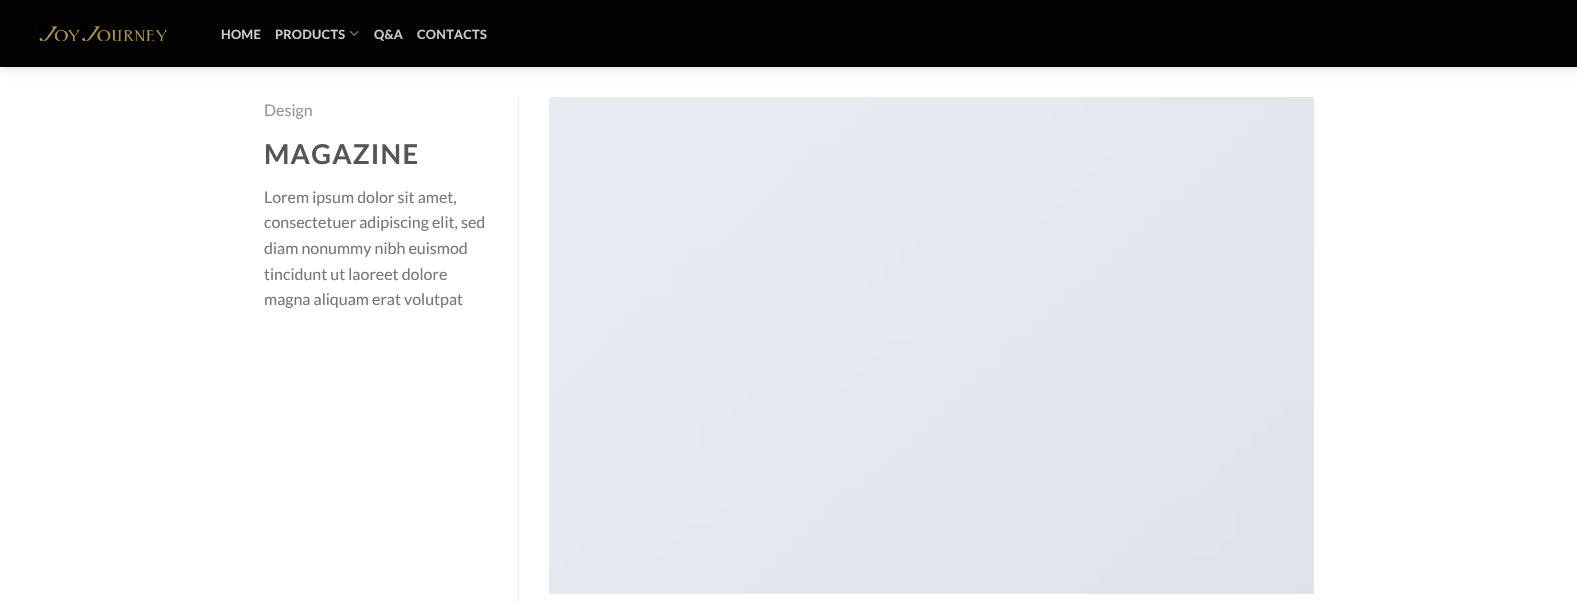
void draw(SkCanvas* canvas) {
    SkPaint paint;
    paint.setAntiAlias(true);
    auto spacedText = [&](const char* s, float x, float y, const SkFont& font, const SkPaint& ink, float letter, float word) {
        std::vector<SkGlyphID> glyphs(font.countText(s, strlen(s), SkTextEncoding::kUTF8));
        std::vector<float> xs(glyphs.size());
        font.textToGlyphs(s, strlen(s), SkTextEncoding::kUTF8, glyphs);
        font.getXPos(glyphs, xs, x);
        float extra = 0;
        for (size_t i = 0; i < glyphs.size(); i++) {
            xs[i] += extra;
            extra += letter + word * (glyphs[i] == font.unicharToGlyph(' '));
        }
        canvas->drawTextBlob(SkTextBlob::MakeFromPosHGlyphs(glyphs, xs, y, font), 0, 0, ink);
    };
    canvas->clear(0xFFFFFFFF);
    paint.setColor(0x26000000);
    paint.setMaskFilter(SkMaskFilter::MakeBlur(kNormal_SkBlurStyle, 5));
    canvas->drawRect(SkRect::MakeXYWH(1, 1, 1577, 67), paint);
    paint.setMaskFilter(nullptr);
    paint.setColor(0xFF030303);
    canvas->drawRect(SkRect::MakeXYWH(0, 0, 1577, 67), paint);
    canvas->drawImageRect(SkImages::DeferredFromEncodedData(SkData::MakeFromFileName("img1.png")), SkRect::MakeXYWH(39, 26, 128, 16), SkSamplingOptions());
    SkFont font1(fontMgr->matchFamilyStyle("Lato", SkFontStyle::Bold()), 12.75f);
    font1.setSubpixel(true);
    paint.setColor(0xFFCDCDCD);
    spacedText("HOME", 221, 39, font1, paint, 0.25f, 0);
    spacedText("PRODUCTS", 275, 39, font1, paint, 0.25f, 0);
    canvas->drawImageRect(SkImages::DeferredFromEncodedData(SkData::MakeFromFileName("img2.png")), SkRect::MakeXYWH(349, 30, 10, 6), SkSamplingOptions());
    spacedText("Q&A", 374, 39, font1, paint, 0.25f, 0);
    spacedText("CONTACTS", 417, 39, font1, paint, 0.25f, 0);
    paint.setColor(0xFFECECEC);
    canvas->drawRect(SkRect::MakeXYWH(518, 97, 1, 505), paint);
    SkFont font2(fontMgr->matchFamilyStyle("Lato", SkFontStyle::Normal()), 16);
    font2.setSubpixel(true);
    paint.setColor(0xFF949494);
    canvas->drawString("Design", 264, 116, font2, paint);
    SkFont font3(fontMgr->matchFamilyStyle("Lato", SkFontStyle::Bold()), 27.25f);
    font3.setSubpixel(true);
    paint.setColor(0xFF555555);
    spacedText("MAGAZINE", 264, 164, font3, paint, 1.25f, 0);
    paint.setColor(0xFF777777);
    canvas->drawString("Lorem ipsum dolor sit amet,", 264, 203, font2, paint);
    canvas->drawString("consectetuer adipiscing elit, sed", 264, 228, font2, paint);
    canvas->drawString("diam nonummy nibh euismod", 264, 254, font2, paint);
    canvas->drawString("tincidunt ut laoreet dolore", 264, 280, font2, paint);
    canvas->drawString("magna aliquam erat volutpat", 264, 305, font2, paint);
    canvas->drawImageRect(SkImages::DeferredFromEncodedData(SkData::MakeFromFileName("img3.png")), SkRect::MakeXYWH(549, 97, 765, 497), SkSamplingOptions());
}
